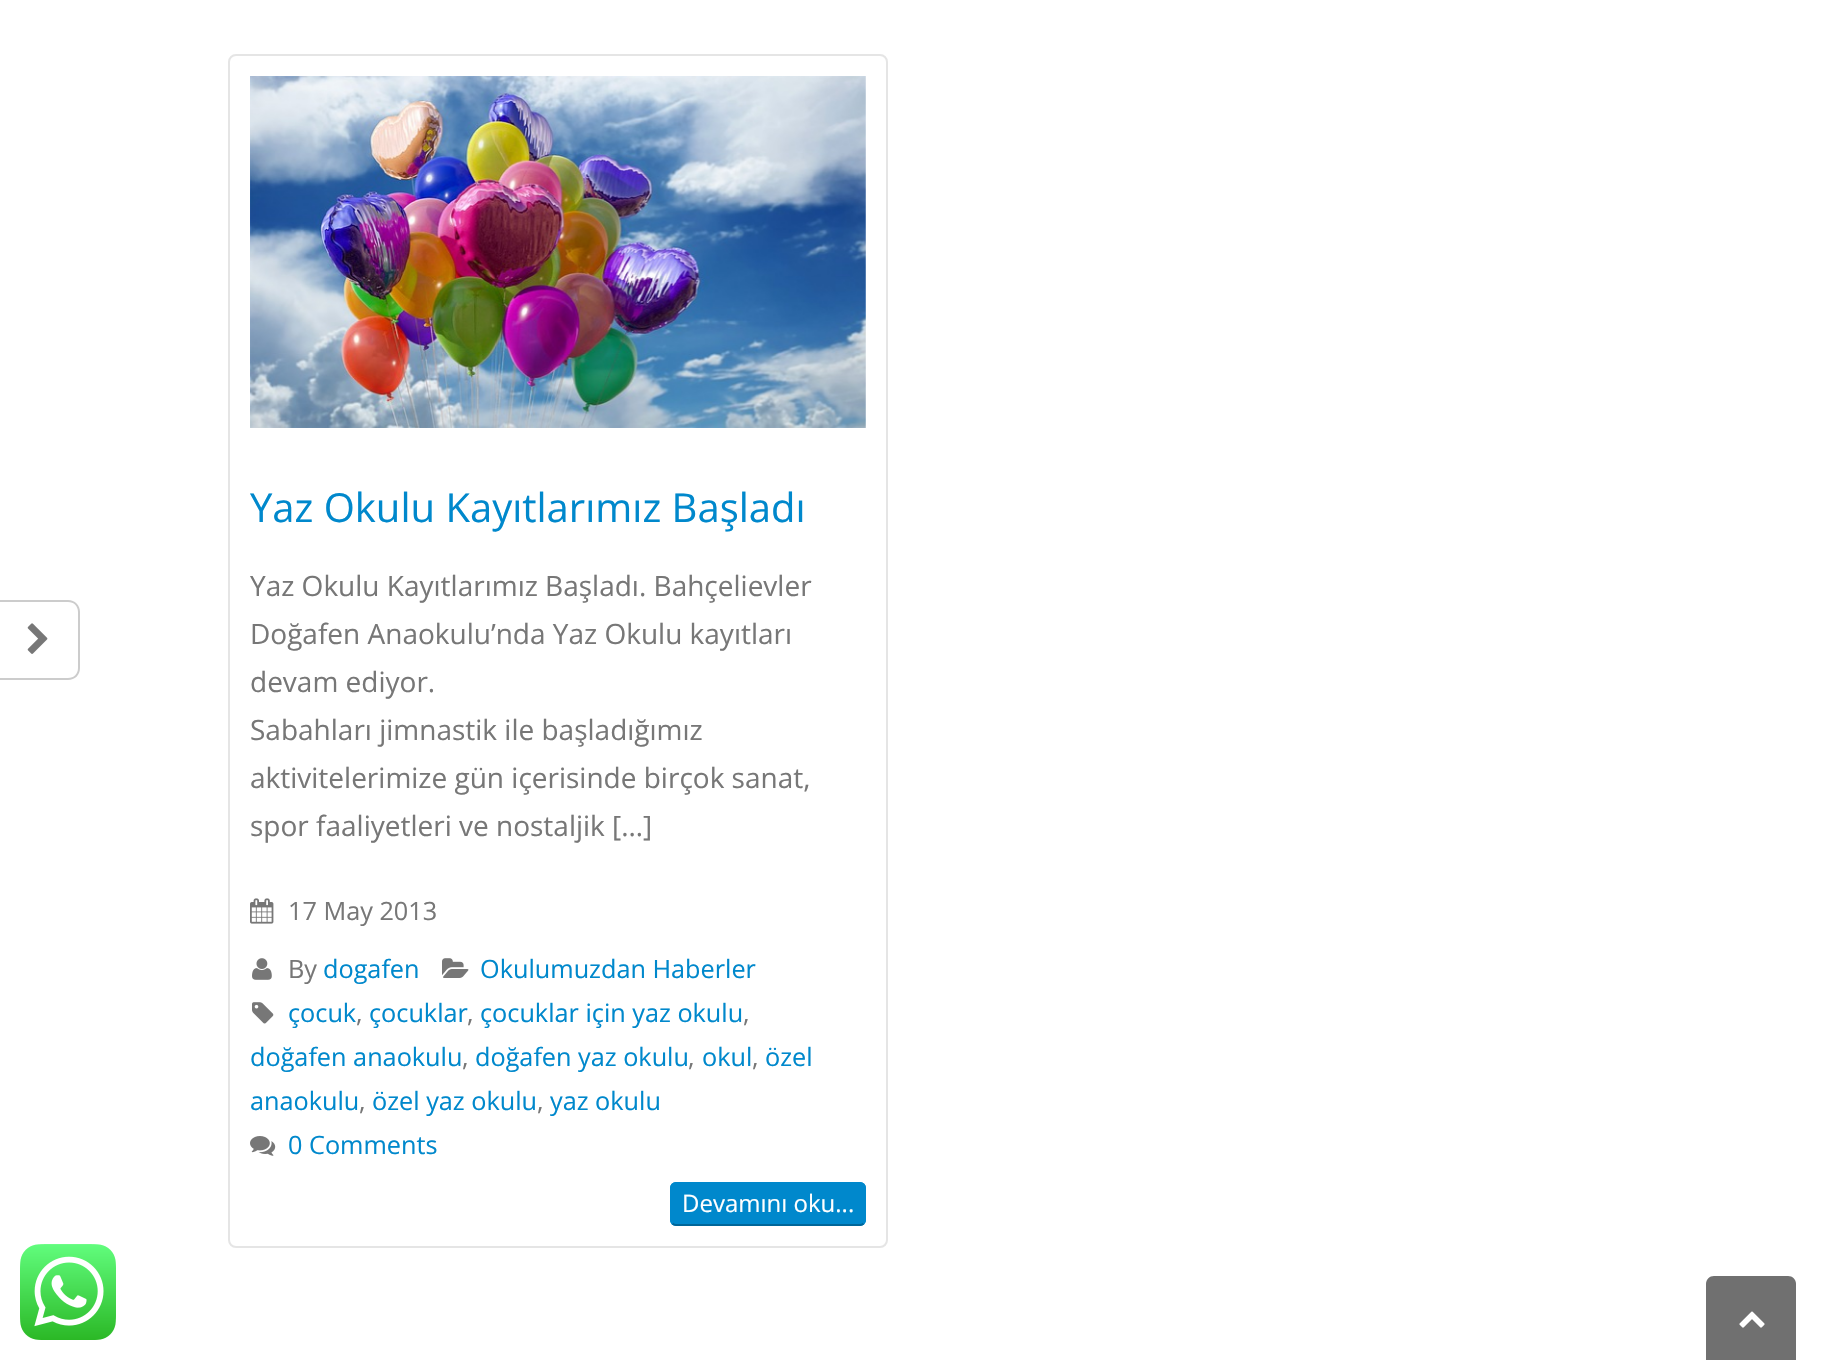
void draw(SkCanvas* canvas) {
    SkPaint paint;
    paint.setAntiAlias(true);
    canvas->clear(0xFFFFFFFF);
    paint.setColor(0xFFCCCCCC);
    canvas->drawPath(SkPathBuilder(SkPathFillType::kEvenOdd).moveTo(0, 600).lineTo(68, 600).cubicTo(75, 600, 80, 605, 80, 612).lineTo(80, 668).cubicTo(80, 675, 75, 680, 68, 680).lineTo(0, 680).close().moveTo(0, 602).lineTo(68, 602).cubicTo(74, 602, 78, 606, 78, 612).lineTo(78, 668).cubicTo(78, 674, 74, 678, 68, 678).lineTo(0, 678).close().detach(), paint);
    canvas->drawImageRect(SkImages::DeferredFromEncodedData(SkData::MakeFromFileName("img1.png")), SkRect::MakeXYWH(27, 623, 21, 31), SkSamplingOptions());
    paint.setStyle(SkPaint::kStroke_Style);
    paint.setStrokeWidth(2);
    paint.setColor(0xFFE5E5E5);
    canvas->drawRoundRect(SkRect::MakeXYWH(229, 55, 658, 1192), 7, 7, paint);
    canvas->drawImageRect(SkImages::DeferredFromEncodedData(SkData::MakeFromFileName("img2.png")), SkRect::MakeXYWH(250, 76, 616, 352), SkSamplingOptions());
    SkFont font1(fontMgr->matchFamilyStyle("Open Sans", SkFontStyle::Normal()), 40);
    font1.setSubpixel(true);
    paint.setStyle(SkPaint::kFill_Style);
    paint.setColor(0xFF0088CC);
    canvas->drawString("Yaz Okulu Kayıtlarımız Başladı", 250, 522, font1, paint);
    SkFont font2(fontMgr->matchFamilyStyle("Open Sans", SkFontStyle::Normal()), 28);
    font2.setSubpixel(true);
    paint.setColor(0xFF777777);
    canvas->drawString("Yaz Okulu Kayıtlarımız Başladı. Bahçelievler", 250, 596, font2, paint);
    canvas->drawString("Doğafen Anaokulu’nda Yaz Okulu kayıtları", 250, 644, font2, paint);
    canvas->drawString("devam ediyor.", 250, 692, font2, paint);
    canvas->drawString("Sabahları jimnastik ile başladığımız", 250, 740, font2, paint);
    canvas->drawString("aktivitelerimize gün içerisinde birçok sanat,", 250, 788, font2, paint);
    canvas->drawString("spor faaliyetleri ve nostaljik […]", 250, 836, font2, paint);
    canvas->drawImageRect(SkImages::DeferredFromEncodedData(SkData::MakeFromFileName("img3.png")), SkRect::MakeXYWH(250, 898, 24, 26), SkSamplingOptions());
    SkFont font3(fontMgr->matchFamilyStyle("Open Sans", SkFontStyle::Normal()), 25.25f);
    font3.setSubpixel(true);
    canvas->drawString("17 May 2013", 288, 920, font3, paint);
    canvas->drawImageRect(SkImages::DeferredFromEncodedData(SkData::MakeFromFileName("img4.png")), SkRect::MakeXYWH(252, 958, 20, 22), SkSamplingOptions());
    canvas->drawString("By", 288, 978, font3, paint);
    paint.setColor(0xFF0088CC);
    canvas->drawString("dogafen", 323, 978, font3, paint);
    canvas->drawImageRect(SkImages::DeferredFromEncodedData(SkData::MakeFromFileName("img5.png")), SkRect::MakeXYWH(442, 958, 27, 20), SkSamplingOptions());
    canvas->drawString("Okulumuzdan Haberler", 480, 978, font3, paint);
    canvas->drawImageRect(SkImages::DeferredFromEncodedData(SkData::MakeFromFileName("img6.png")), SkRect::MakeXYWH(252, 1002, 22, 22), SkSamplingOptions());
    canvas->drawString("çocuk", 288, 1022, font3, paint);
    paint.setColor(0xFF777777);
    canvas->drawString(",", 356, 1022, font3, paint);
    paint.setColor(0xFF0088CC);
    canvas->drawString("çocuklar", 369, 1022, font3, paint);
    paint.setColor(0xFF777777);
    canvas->drawString(",", 467, 1022, font3, paint);
    paint.setColor(0xFF0088CC);
    canvas->drawString("çocuklar için yaz okulu", 480, 1022, font3, paint);
    paint.setColor(0xFF777777);
    canvas->drawString(",", 743, 1022, font3, paint);
    paint.setColor(0xFF0088CC);
    canvas->drawString("doğafen anaokulu", 250, 1066, font3, paint);
    paint.setColor(0xFF777777);
    canvas->drawString(",", 462, 1066, font3, paint);
    paint.setColor(0xFF0088CC);
    canvas->drawString("doğafen yaz okulu", 475, 1066, font3, paint);
    paint.setColor(0xFF777777);
    canvas->drawString(",", 688, 1066, font3, paint);
    paint.setColor(0xFF0088CC);
    canvas->drawString("okul", 702, 1066, font3, paint);
    paint.setColor(0xFF777777);
    canvas->drawString(",", 752, 1066, font3, paint);
    paint.setColor(0xFF0088CC);
    canvas->drawString("özel", 765, 1066, font3, paint);
    canvas->drawString("anaokulu", 250, 1110, font3, paint);
    paint.setColor(0xFF777777);
    canvas->drawString(",", 359, 1110, font3, paint);
    paint.setColor(0xFF0088CC);
    canvas->drawString("özel yaz okulu", 372, 1110, font3, paint);
    paint.setColor(0xFF777777);
    canvas->drawString(",", 537, 1110, font3, paint);
    paint.setColor(0xFF0088CC);
    canvas->drawString("yaz okulu", 550, 1110, font3, paint);
    canvas->drawImageRect(SkImages::DeferredFromEncodedData(SkData::MakeFromFileName("img7.png")), SkRect::MakeXYWH(250, 1136, 26, 20), SkSamplingOptions());
    canvas->drawString("0 Comments", 288, 1154, font3, paint);
    canvas->drawRoundRect(SkRect::MakeXYWH(670, 1182, 196, 44), 6, 6, paint);
    paint.setStyle(SkPaint::kStroke_Style);
    paint.setColor(0xFF006699);
    canvas->drawPath(SkPathBuilder().moveTo(863.5f, 1223.5f).cubicTo(862.5f, 1224.5f, 861.5f, 1225, 860, 1225).lineTo(676, 1225).cubicTo(674.5f, 1225, 673.5f, 1224.5f, 672.5f, 1223.5f).detach(), paint);
    paint.setColor(0xFF0088CC);
    canvas->drawPath(SkPathBuilder().moveTo(672.5f, 1223.5f).cubicTo(671.5f, 1222.5f, 671, 1221.5f, 671, 1220).lineTo(671, 1188).cubicTo(671, 1186.5f, 671.5f, 1185.5f, 672.5f, 1184.5f).cubicTo(673.5f, 1183.5f, 674.5f, 1183, 676, 1183).lineTo(860, 1183).cubicTo(861.5f, 1183, 862.5f, 1183.5f, 863.5f, 1184.5f).cubicTo(864.5f, 1185.5f, 865, 1186.5f, 865, 1188).lineTo(865, 1220).cubicTo(865, 1221.5f, 864.5f, 1222.5f, 863.5f, 1223.5f).detach(), paint);
    SkFont font4(fontMgr->matchFamilyStyle("Open Sans", SkFontStyle::Normal()), 24);
    font4.setSubpixel(true);
    paint.setStyle(SkPaint::kFill_Style);
    paint.setColor(0xFFFFFFFF);
    canvas->drawString("Devamını oku...", 682, 1212, font4, paint);
    canvas->drawImageRect(SkImages::DeferredFromEncodedData(SkData::MakeFromFileName("img8.png")), SkRect::MakeXYWH(20, 1244, 96, 96), SkSamplingOptions());
    paint.setColor(0xFF707070);
    canvas->drawPath(SkPathBuilder().moveTo(1714, 1276).lineTo(1788, 1276).cubicTo(1792.5f, 1276, 1796, 1279.5f, 1796, 1284).lineTo(1796, 1360).lineTo(1706, 1360).lineTo(1706, 1284).cubicTo(1706, 1279.5f, 1709.5f, 1276, 1714, 1276).close().detach(), paint);
    canvas->drawImageRect(SkImages::DeferredFromEncodedData(SkData::MakeFromFileName("img9.png")), SkRect::MakeXYWH(1739, 1311, 26, 17), SkSamplingOptions());
}
